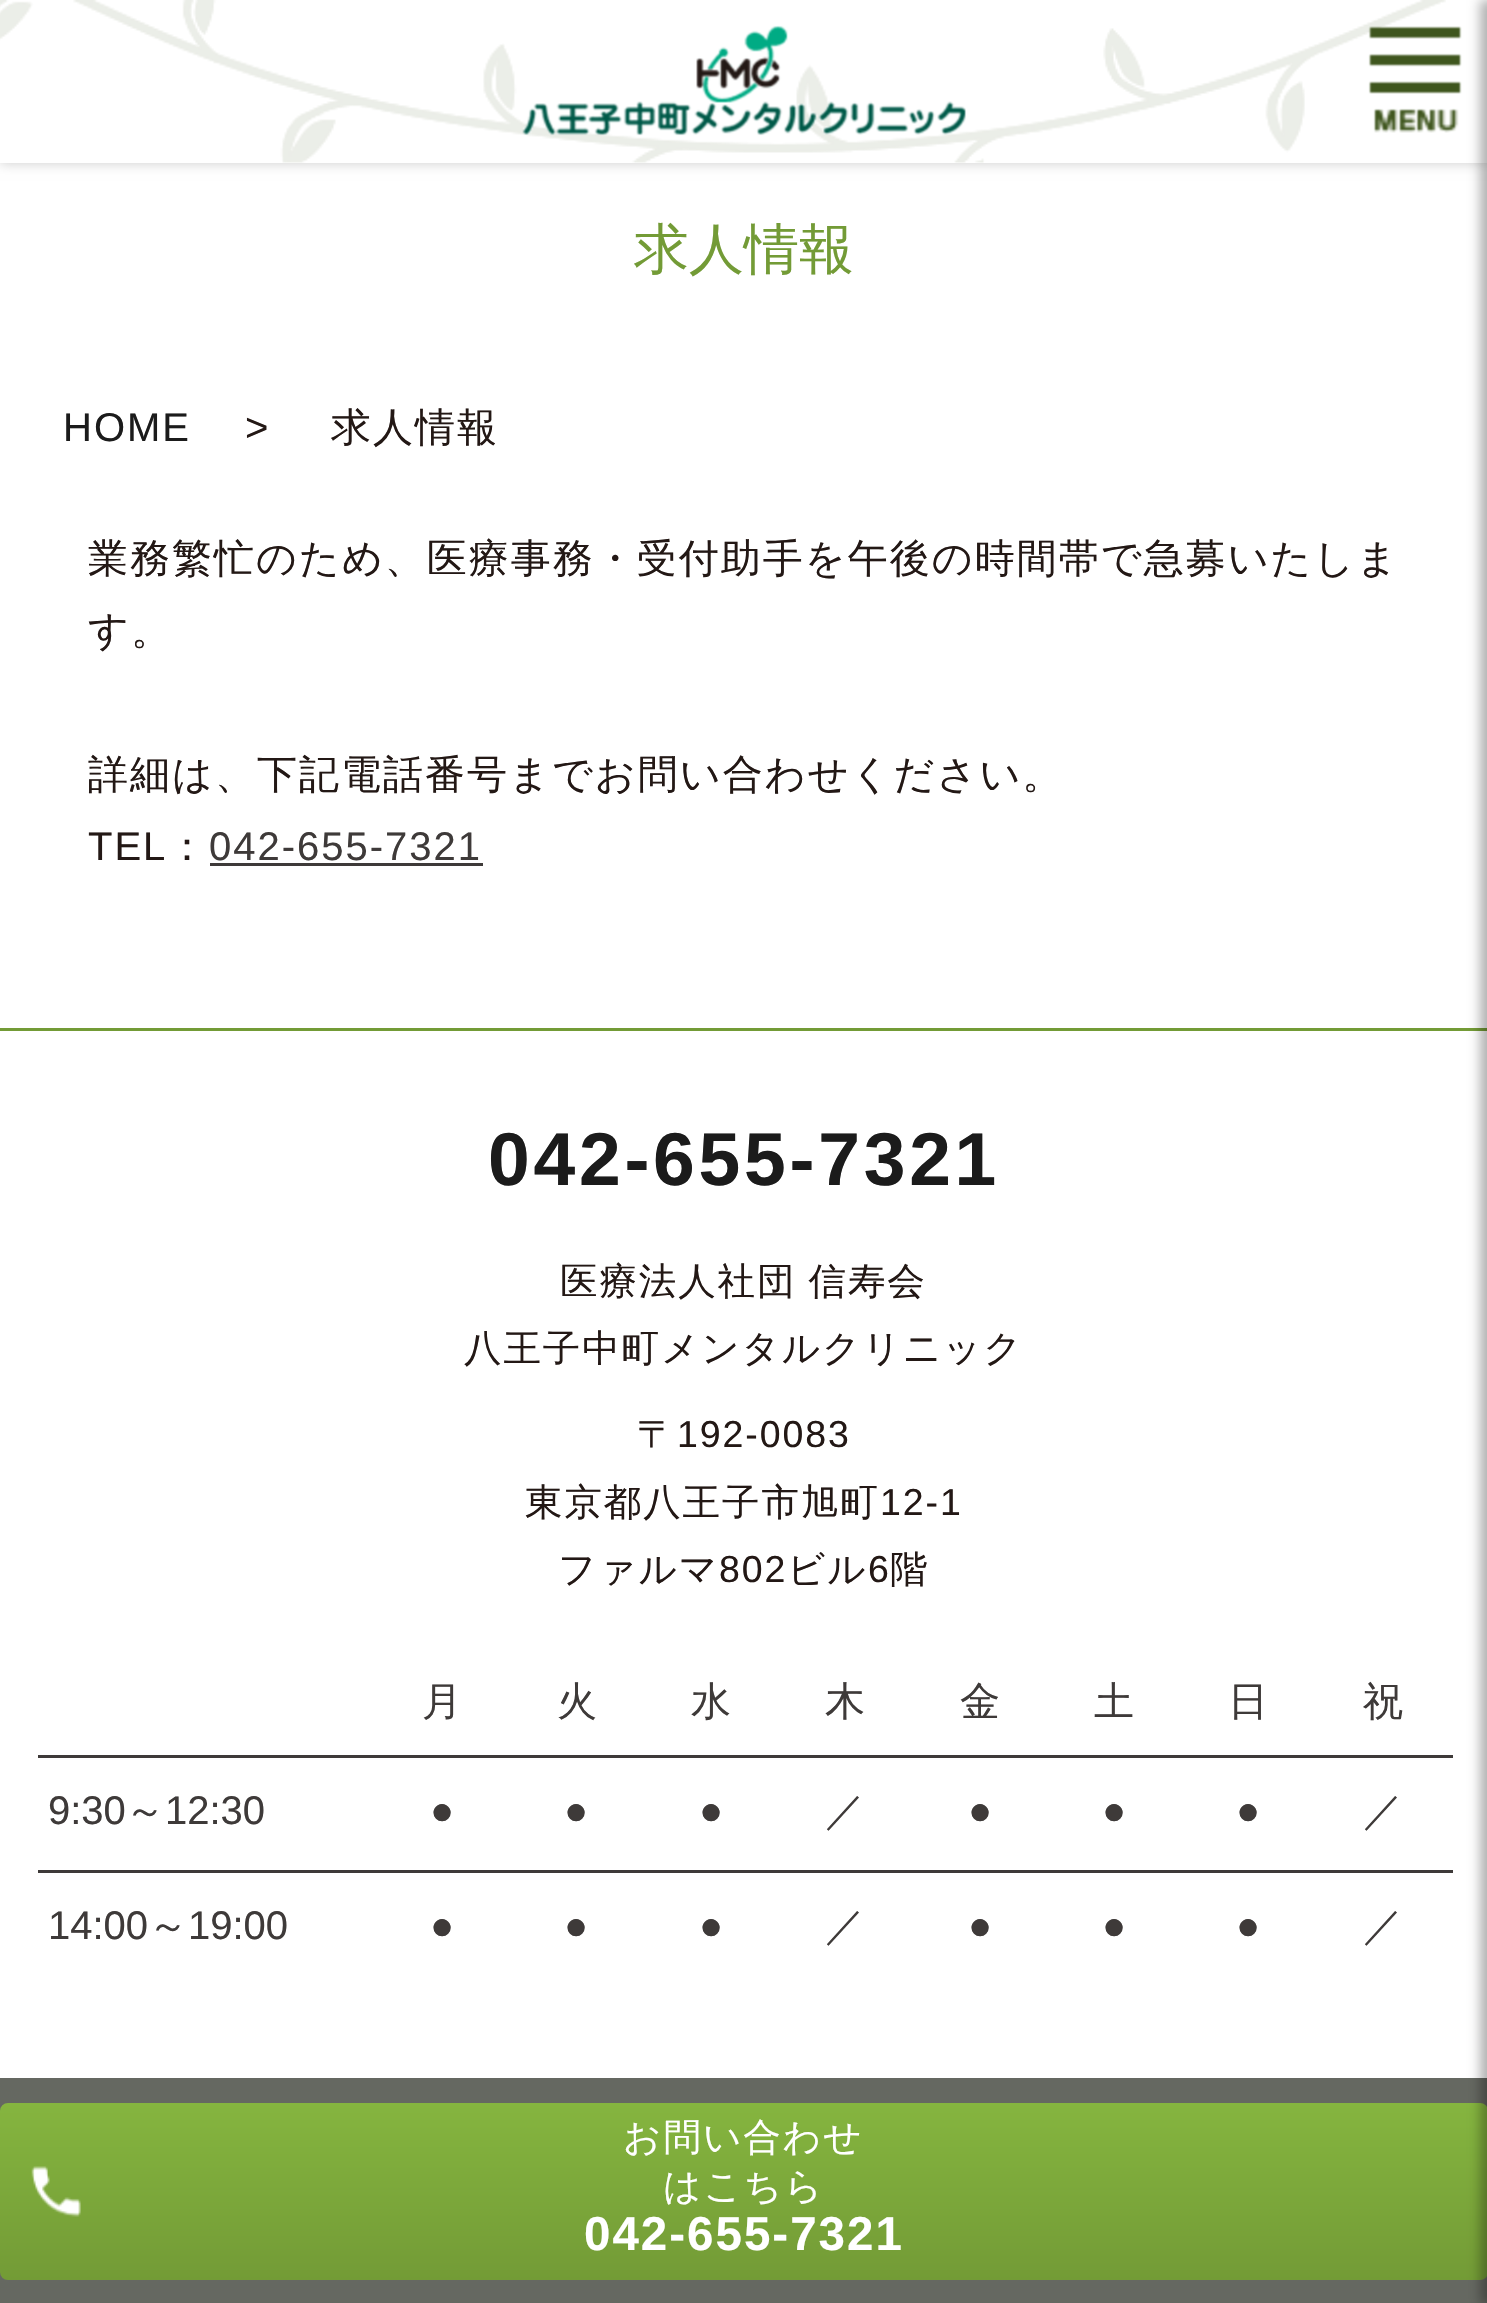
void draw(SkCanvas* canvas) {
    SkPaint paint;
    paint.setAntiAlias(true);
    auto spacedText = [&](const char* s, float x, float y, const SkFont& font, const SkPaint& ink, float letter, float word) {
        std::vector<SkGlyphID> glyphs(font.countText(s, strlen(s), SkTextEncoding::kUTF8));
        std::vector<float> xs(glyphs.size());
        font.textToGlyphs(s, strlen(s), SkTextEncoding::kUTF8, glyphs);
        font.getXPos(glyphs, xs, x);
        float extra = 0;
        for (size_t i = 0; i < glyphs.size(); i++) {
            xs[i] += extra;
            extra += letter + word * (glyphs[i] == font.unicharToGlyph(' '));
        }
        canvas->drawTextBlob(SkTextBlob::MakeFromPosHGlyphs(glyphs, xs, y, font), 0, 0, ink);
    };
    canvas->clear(0xFFFFFFFF);
    paint.setColor(0x33000000);
    paint.setMaskFilter(SkMaskFilter::MakeBlur(kNormal_SkBlurStyle, 6));
    canvas->drawRect(SkRect::MakeXYWH(0, 0, 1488, 163), paint);
    paint.setMaskFilter(nullptr);
    paint.setColor(0xFFFFFFFF);
    canvas->drawRect(SkRect::MakeXYWH(0, 0, 1487, 163), paint);
    canvas->drawImageRect(SkImages::DeferredFromEncodedData(SkData::MakeFromFileName("img1.png")), SkRect::MakeXYWH(0, 0, 1446, 163), SkSamplingOptions());
    canvas->drawImageRect(SkImages::DeferredFromEncodedData(SkData::MakeFromFileName("img2.png")), SkRect::MakeXYWH(522, 25, 444, 111), SkSamplingOptions());
    canvas->drawImageRect(SkImages::DeferredFromEncodedData(SkData::MakeFromFileName("img3.png")), SkRect::MakeXYWH(1368, 26, 94, 107), SkSamplingOptions());
    SkFont font1(fontMgr->matchFamilyStyle("WenQuanYi Zen Hei", SkFontStyle(500, SkFontStyle::kNormal_Width, SkFontStyle::kUpright_Slant)), 55);
    font1.setSubpixel(true);
    paint.setColor(0xFF739B36);
    canvas->drawString("求人情報", 634, 268, font1, paint);
    SkFont font2(fontMgr->matchFamilyStyle("Liberation Sans", SkFontStyle::Normal()), 40);
    font2.setSubpixel(true);
    paint.setColor(0xFF1B1B1B);
    spacedText("HOME", 63, 441, font2, paint, 2, 0);
    paint.setColor(0xFF231815);
    spacedText(">", 245, 441, font2, paint, 2, 0);
    SkFont font3(fontMgr->matchFamilyStyle("WenQuanYi Zen Hei", SkFontStyle(500, SkFontStyle::kNormal_Width, SkFontStyle::kUpright_Slant)), 40);
    font3.setSubpixel(true);
    spacedText("求人情報", 331, 441, font3, paint, 2, 0);
    spacedText("業務繁忙のため、医療事務・受付助手を午後の時間帯で急募いたしま", 88, 572, font3, paint, 2, 0);
    spacedText("す。", 88, 644, font3, paint, 2, 0);
    spacedText("詳細は、下記電話番号までお問い合わせください。", 88, 788, font3, paint, 2, 0);
    spacedText("TEL", 88, 860, font2, paint, 2, 0);
    spacedText("：", 167, 860, font3, paint, 2, 0);
    paint.setColor(0xFF3E3A39);
    spacedText("042-655-7321", 209, 860, font2, paint, 2, 0);
    canvas->drawRect(SkRect::MakeXYWH(210, 863, 273, 3), paint);
    paint.setColor(0xFF739B36);
    canvas->drawRect(SkRect::MakeXYWH(0, 1028, 1487, 3), paint);
    paint.setColor(0xB323281E);
    canvas->drawRect(SkRect::MakeXYWH(0, 2078, 1487, 225), paint);
    {
        const SkColor colors[] = {0xFF85B53F, 0xFF739B36};
        const float stops[] = {0, 1};
        const SkPoint ends[] = {{744, 2103}, {744, 2280}};
        paint.setShader(SkGradientShader::MakeLinear(ends, colors, stops, 2, SkTileMode::kClamp));
        paint.setAlpha(255);
    }
    canvas->drawRoundRect(SkRect::MakeXYWH(0, 2103, 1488, 177), 8, 8, paint);
    paint.setShader(nullptr);
    paint.setColor(0x4D000000);
    paint.setMaskFilter(SkMaskFilter::MakeBlur(kNormal_SkBlurStyle, 6));
    canvas->drawRect(SkRect::MakeXYWH(1480, 0, 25, 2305), paint);
    paint.setMaskFilter(nullptr);
    SkFont font4(fontMgr->matchFamilyStyle("Liberation Sans", SkFontStyle::Bold()), 75);
    font4.setSubpixel(true);
    paint.setColor(0xFF1B1B1B);
    spacedText("042-655-7321", 488, 1185, font4, paint, 3.75f, 0);
    SkFont font5(fontMgr->matchFamilyStyle("WenQuanYi Zen Hei", SkFontStyle(500, SkFontStyle::kNormal_Width, SkFontStyle::kUpright_Slant)), 37.5f);
    font5.setSubpixel(true);
    paint.setColor(0xFF231815);
    spacedText("医療法人社団 信寿会", 560, 1294, font5, paint, 1.9f, -1);
    spacedText("八王子中町メンタルクリニック", 464, 1361, font5, paint, 1.9f, 0);
    spacedText("〒", 637, 1447, font5, paint, 1.9f, 0);
    SkFont font6(fontMgr->matchFamilyStyle("Liberation Sans", SkFontStyle::Normal()), 37.5f);
    font6.setSubpixel(true);
    spacedText("192-0083", 677, 1447, font6, paint, 1.9f, 0);
    spacedText("東京都八王子市旭町", 525, 1515, font5, paint, 1.9f, 0);
    spacedText("12-1", 880, 1515, font6, paint, 1.9f, 0);
    spacedText("ファルマ", 558, 1582, font5, paint, 1.9f, 0);
    spacedText("802", 719, 1582, font6, paint, 1.9f, 0);
    spacedText("ビル", 787, 1582, font5, paint, 1.9f, 0);
    spacedText("6", 868, 1582, font6, paint, 1.9f, 0);
    spacedText("階", 890, 1582, font5, paint, 1.9f, 0);
    paint.setColor(0xFF3E3A39);
    canvas->drawString("月", 422, 1715, font3, paint);
    canvas->drawString("火", 557, 1715, font3, paint);
    canvas->drawString("水", 691, 1715, font3, paint);
    canvas->drawString("木", 825, 1715, font3, paint);
    canvas->drawString("金", 960, 1715, font3, paint);
    canvas->drawString("土", 1094, 1715, font3, paint);
    canvas->drawString("日", 1228, 1715, font3, paint);
    canvas->drawString("祝", 1363, 1715, font3, paint);
    canvas->drawString("9:30", 48, 1824, font2, paint);
    canvas->drawString("～", 125, 1824, font3, paint);
    canvas->drawString("12:30", 165, 1824, font2, paint);
    canvas->drawString("●", 430, 1824, font2, paint);
    canvas->drawString("●", 564, 1824, font2, paint);
    canvas->drawString("●", 699, 1824, font2, paint);
    canvas->drawString("／", 825, 1824, font3, paint);
    canvas->drawString("●", 968, 1824, font2, paint);
    canvas->drawString("●", 1102, 1824, font2, paint);
    canvas->drawString("●", 1236, 1824, font2, paint);
    canvas->drawRect(SkRect::MakeXYWH(38, 1755, 1415, 3), paint);
    canvas->drawString("／", 1363, 1824, font3, paint);
    canvas->drawString("14:00", 48, 1939, font2, paint);
    canvas->drawString("～", 148, 1939, font3, paint);
    canvas->drawString("19:00", 188, 1939, font2, paint);
    canvas->drawString("●", 430, 1939, font2, paint);
    canvas->drawString("●", 564, 1939, font2, paint);
    canvas->drawString("●", 699, 1939, font2, paint);
    canvas->drawString("／", 825, 1939, font3, paint);
    canvas->drawString("●", 968, 1939, font2, paint);
    canvas->drawString("●", 1102, 1939, font2, paint);
    canvas->drawString("●", 1236, 1939, font2, paint);
    canvas->drawRect(SkRect::MakeXYWH(38, 1870, 1415, 3), paint);
    canvas->drawString("／", 1363, 1939, font3, paint);
    paint.setColor(0xFFFFFFFF);
    spacedText("お問い合わせ", 623, 2150, font5, paint, 2, 0);
    canvas->drawImageRect(SkImages::DeferredFromEncodedData(SkData::MakeFromFileName("img4.png")), SkRect::MakeXYWH(31, 2166, 50, 51), SkSamplingOptions());
    spacedText("はこちら", 663, 2199, font5, paint, 2, 0);
    SkFont font7(fontMgr->matchFamilyStyle("Liberation Sans", SkFontStyle::Bold()), 47.5f);
    font7.setSubpixel(true);
    spacedText("042-655-7321", 584, 2250, font7, paint, 2, 0);
}
